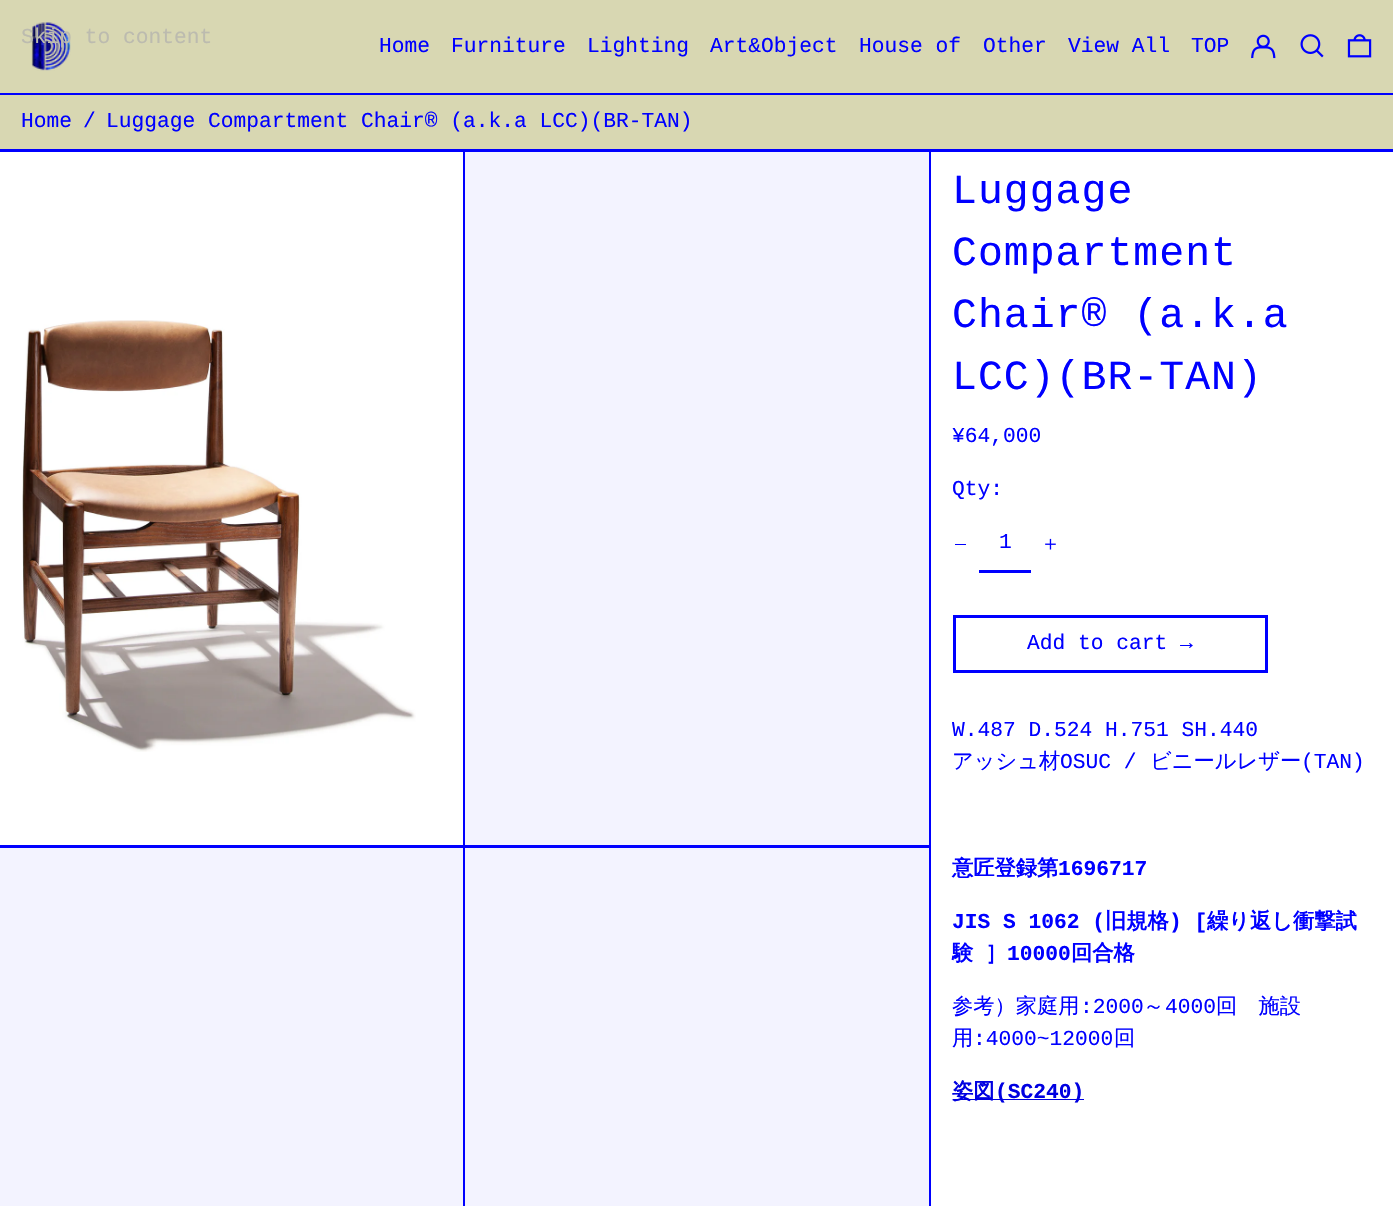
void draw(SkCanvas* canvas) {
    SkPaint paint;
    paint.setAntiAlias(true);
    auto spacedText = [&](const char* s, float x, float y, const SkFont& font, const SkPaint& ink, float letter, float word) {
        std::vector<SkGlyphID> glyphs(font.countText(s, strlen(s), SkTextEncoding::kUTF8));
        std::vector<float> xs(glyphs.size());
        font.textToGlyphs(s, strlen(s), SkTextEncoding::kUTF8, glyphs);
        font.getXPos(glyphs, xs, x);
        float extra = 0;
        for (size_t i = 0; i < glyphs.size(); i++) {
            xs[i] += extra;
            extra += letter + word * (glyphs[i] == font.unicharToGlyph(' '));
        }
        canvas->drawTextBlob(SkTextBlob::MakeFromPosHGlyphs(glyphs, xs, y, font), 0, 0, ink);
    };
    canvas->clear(0xFF0000FF);
    paint.setColor(0xFFD8D7B2);
    canvas->drawRect(SkRect::MakeXYWH(0, 0, 1393, 93), paint);
    canvas->drawImageRect(SkImages::DeferredFromEncodedData(SkData::MakeFromFileName("img1.png")), SkRect::MakeXYWH(31, 22, 40, 49), SkSamplingOptions());
    SkFont font1(fontMgr->matchFamilyStyle("Liberation Mono", SkFontStyle::Normal()), 21.25f);
    font1.setSubpixel(true);
    paint.setColor(0xFFBCBBAF);
    canvas->drawString("Skip to content", 21, 43, font1, paint);
    paint.setColor(0xFF0000FF);
    canvas->drawString("Home", 379, 52, font1, paint);
    canvas->drawString("Furniture", 451, 52, font1, paint);
    canvas->drawString("Lighting", 587, 52, font1, paint);
    canvas->drawString("Art&Object", 710, 52, font1, paint);
    canvas->drawString("House of", 859, 52, font1, paint);
    canvas->drawString("Other", 983, 52, font1, paint);
    canvas->drawString("View All", 1068, 52, font1, paint);
    canvas->drawString("TOP", 1191, 52, font1, paint);
    canvas->drawImageRect(SkImages::DeferredFromEncodedData(SkData::MakeFromFileName("img2.png")), SkRect::MakeXYWH(1251, 34, 25, 25), SkSamplingOptions());
    canvas->drawImageRect(SkImages::DeferredFromEncodedData(SkData::MakeFromFileName("img3.png")), SkRect::MakeXYWH(1300, 34, 24, 24), SkSamplingOptions());
    canvas->drawImageRect(SkImages::DeferredFromEncodedData(SkData::MakeFromFileName("img4.png")), SkRect::MakeXYWH(1347, 34, 25, 24), SkSamplingOptions());
    paint.setColor(0xFFD8D7B2);
    canvas->drawRect(SkRect::MakeXYWH(0, 95, 1393, 54), paint);
    paint.setColor(0xFF0000FF);
    canvas->drawString("Home", 21, 127, font1, paint);
    canvas->drawString("/", 83, 127, font1, paint);
    canvas->drawString("Luggage Compartment Chair® (a.k.a LCC)(BR-TAN)", 106, 127, font1, paint);
    paint.setColor(0xFFFFFFFF);
    canvas->drawRect(SkRect::MakeXYWH(0, 152, 463, 693), paint);
    canvas->drawImageRect(SkImages::DeferredFromEncodedData(SkData::MakeFromFileName("img5.png")), SkRect::MakeXYWH(22, 320, 394, 432), SkSamplingOptions());
    paint.setColor(0xFFF3F3FF);
    canvas->drawRect(SkRect::MakeXYWH(465, 152, 464, 693), paint);
    canvas->drawRect(SkRect::MakeXYWH(0, 848, 463, 358), paint);
    canvas->drawRect(SkRect::MakeXYWH(465, 848, 464, 358), paint);
    paint.setColor(0xFFFFFFFF);
    canvas->drawRect(SkRect::MakeXYWH(931, 152, 462, 1054), paint);
    SkFont font2(fontMgr->matchFamilyStyle("Liberation Mono", SkFontStyle::Normal()), 41.5f);
    font2.setSubpixel(true);
    paint.setColor(0xFF0000FF);
    spacedText("Luggage", 952, 203, font2, paint, 1, 0);
    spacedText("Compartment", 952, 265, font2, paint, 1, 0);
    spacedText("Chair® (a.k.a", 952, 327, font2, paint, 1, 0);
    spacedText("LCC)(BR-TAN)", 952, 389, font2, paint, 1, 0);
    canvas->drawString("¥64,000", 952, 442, font1, paint);
    canvas->drawString("Qty:", 952, 495, font1, paint);
    canvas->drawRect(SkRect::MakeXYWH(955, 544, 11, 1), paint);
    canvas->drawRect(SkRect::MakeXYWH(979, 570, 52, 3), paint);
    canvas->drawString("1", 999, 548, font1, paint);
    canvas->drawImageRect(SkImages::DeferredFromEncodedData(SkData::MakeFromFileName("img6.png")), SkRect::MakeXYWH(1045, 538, 11, 12), SkSamplingOptions());
    paint.setStyle(SkPaint::kStroke_Style);
    paint.setStrokeWidth(3);
    canvas->drawRect(SkRect::MakeXYWH(954.5f, 616.5f, 312, 55), paint);
    paint.setStyle(SkPaint::kFill_Style);
    canvas->drawString("Add to cart →", 1027, 649, font1, paint);
    canvas->drawString("W.487 D.524 H.751 SH.440", 952, 736, font1, paint);
    SkFont font3(fontMgr->matchFamilyStyle("WenQuanYi Zen Hei", SkFontStyle(500, SkFontStyle::kNormal_Width, SkFontStyle::kUpright_Slant)), 21.25f);
    font3.setSubpixel(true);
    canvas->drawString("アッシュ材", 952, 768, font3, paint);
    canvas->drawString("OSUC /", 1060, 768, font1, paint);
    canvas->drawString("ビニールレザー", 1150, 768, font3, paint);
    canvas->drawString("(TAN)", 1301, 768, font1, paint);
    SkFont font4(fontMgr->matchFamilyStyle("WenQuanYi Zen Hei", SkFontStyle::Bold()), 21.25f);
    font4.setSubpixel(true);
    canvas->drawString("意匠登録第", 952, 875, font4, paint);
    SkFont font5(fontMgr->matchFamilyStyle("Liberation Mono", SkFontStyle::Bold()), 21.25f);
    font5.setSubpixel(true);
    canvas->drawString("1696717", 1058, 875, font5, paint);
    canvas->drawString("JIS S 1062 (", 952, 928, font5, paint);
    canvas->drawString("旧規格", 1105, 928, font4, paint);
    canvas->drawString(") [", 1169, 928, font5, paint);
    canvas->drawString("繰り返し衝撃試", 1207, 928, font4, paint);
    spacedText("験 ］", 952, 960, font4, paint, 0, 6);
    canvas->drawString("10000", 1007, 960, font5, paint);
    canvas->drawString("回合格", 1071, 960, font4, paint);
    canvas->drawString("参考）家庭用", 952, 1013, font3, paint);
    canvas->drawString(":2000", 1080, 1013, font1, paint);
    canvas->drawString("～", 1143, 1013, font3, paint);
    canvas->drawString("4000", 1165, 1013, font1, paint);
    canvas->drawString("回　施設", 1216, 1013, font3, paint);
    canvas->drawString("用", 952, 1045, font3, paint);
    canvas->drawString(":4000~12000", 973, 1045, font1, paint);
    canvas->drawString("回", 1114, 1045, font3, paint);
    paint.setColor(0xFF0000E1);
    canvas->drawRect(SkRect::MakeXYWH(953, 1099, 131, 1), paint);
    canvas->drawString("姿図", 952, 1098, font4, paint);
    canvas->drawString("(SC240)", 995, 1098, font5, paint);
}
